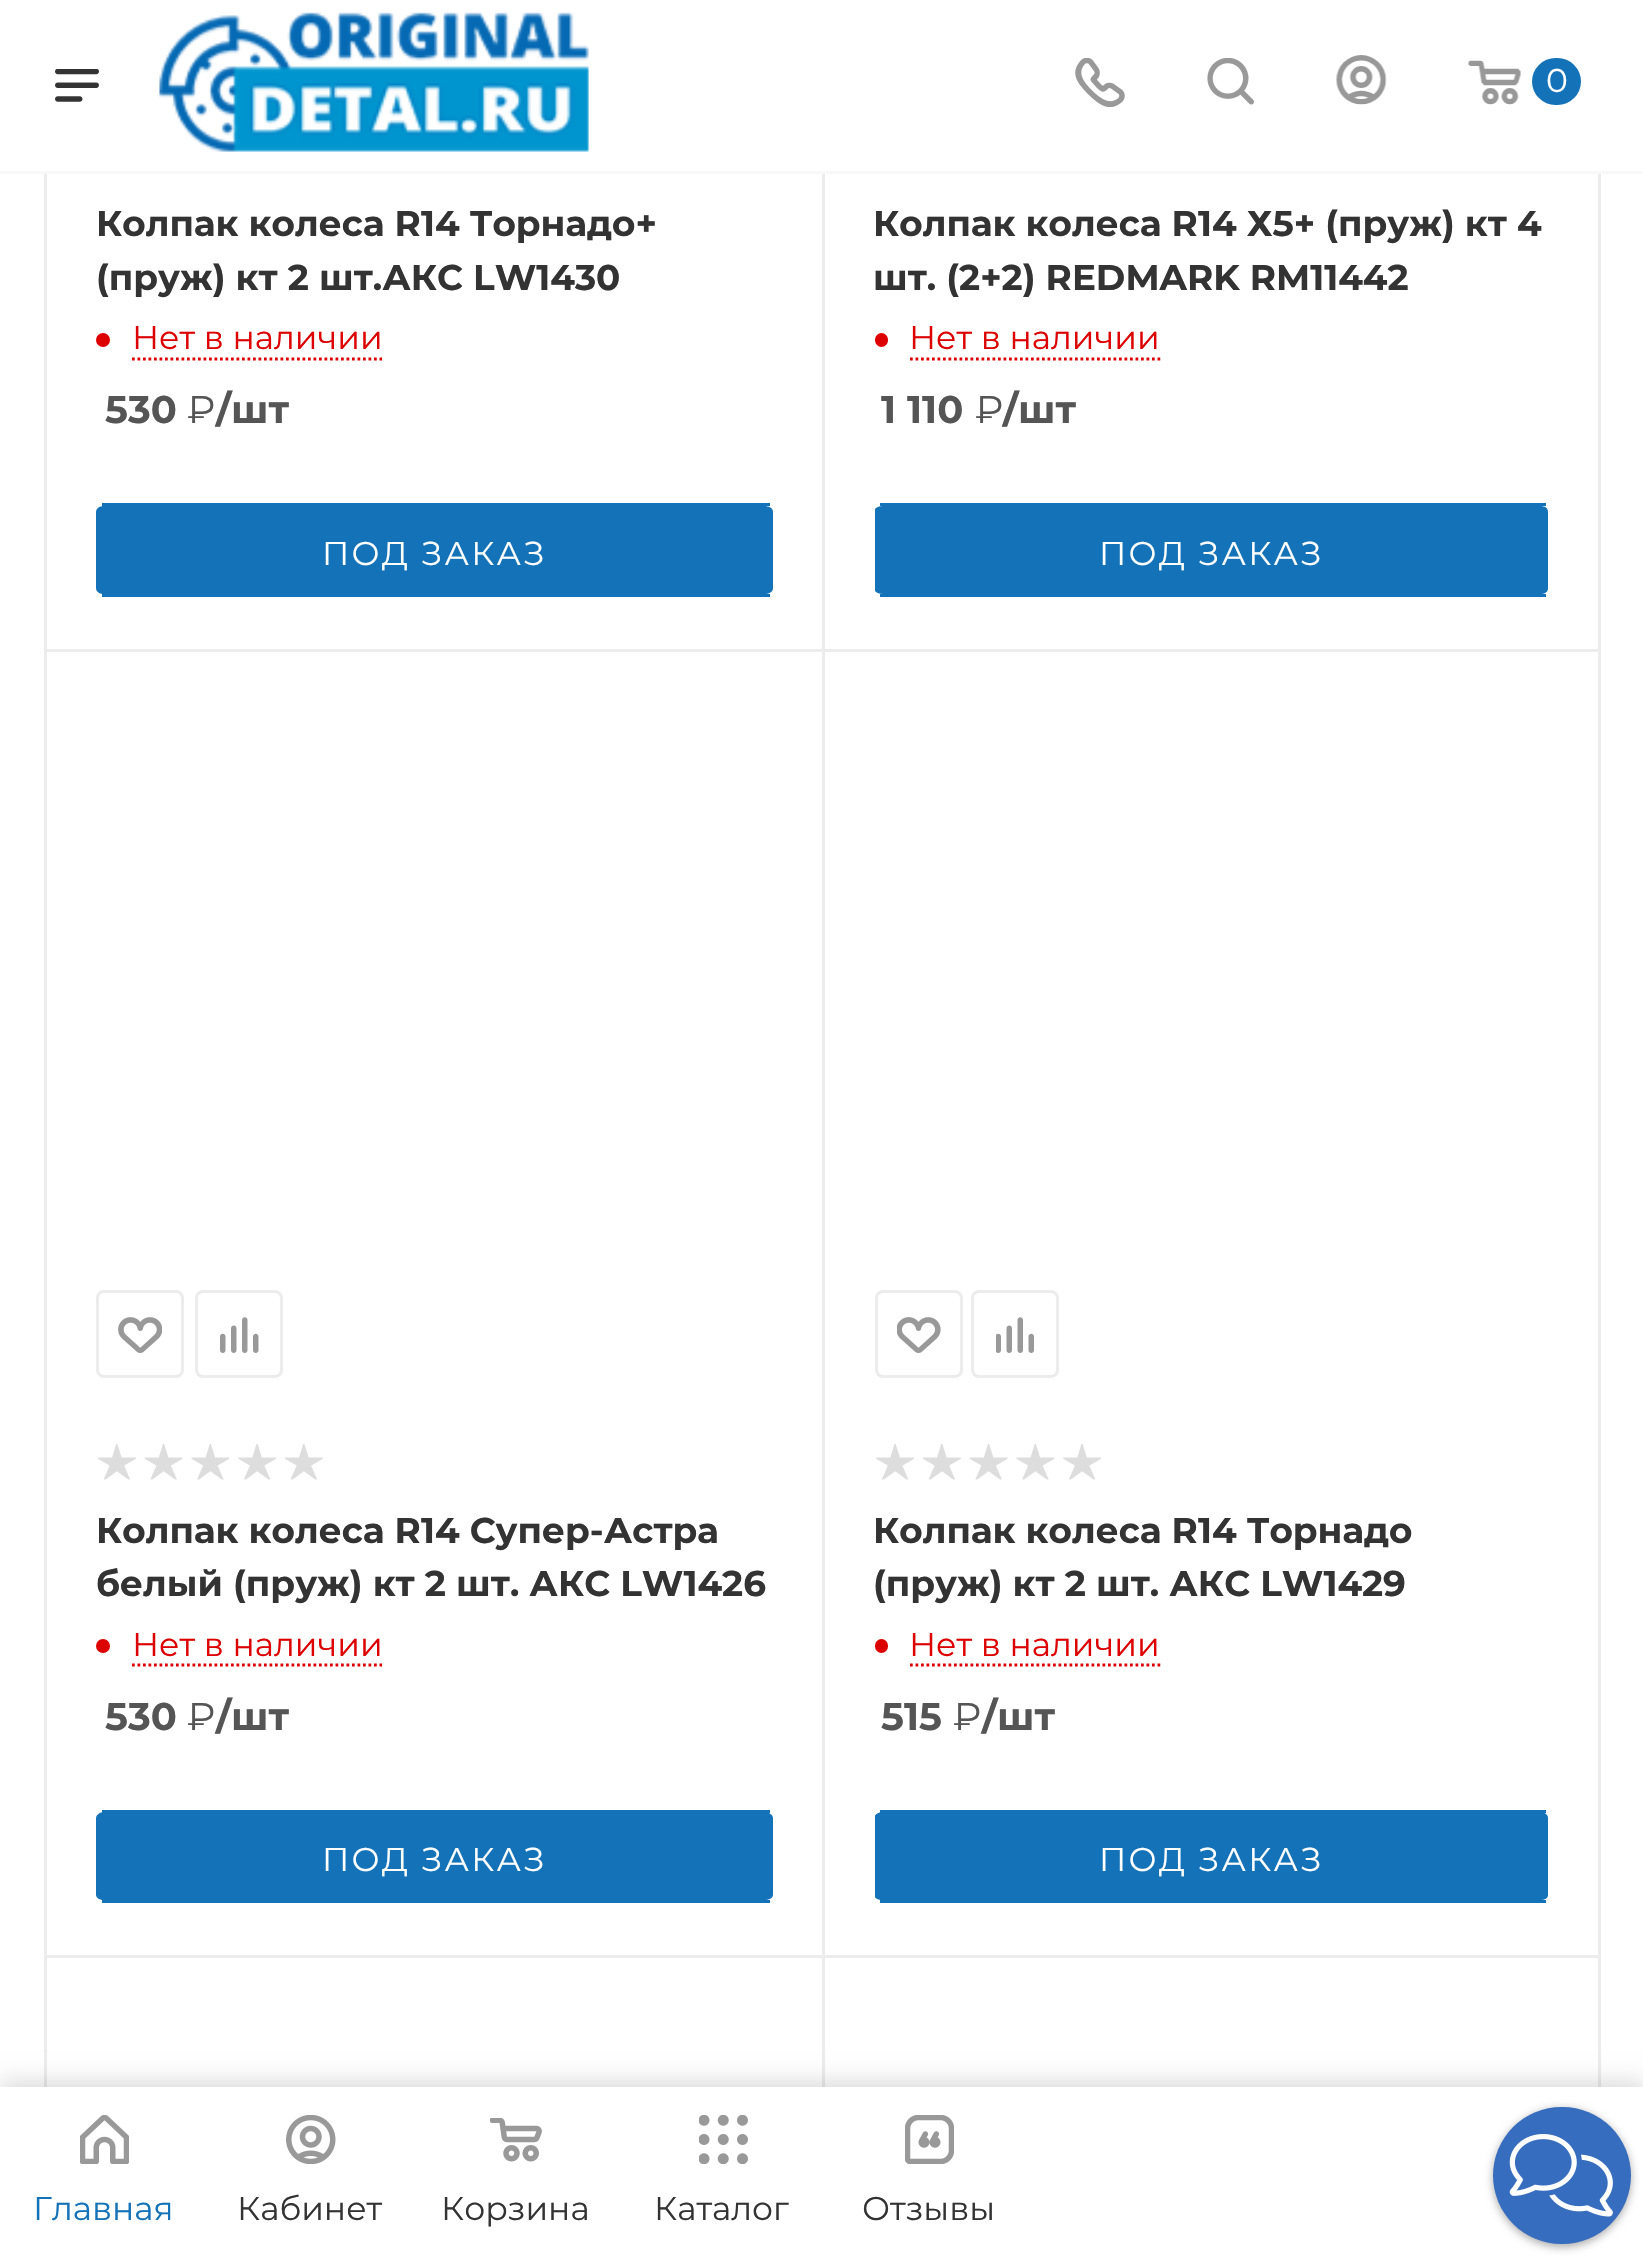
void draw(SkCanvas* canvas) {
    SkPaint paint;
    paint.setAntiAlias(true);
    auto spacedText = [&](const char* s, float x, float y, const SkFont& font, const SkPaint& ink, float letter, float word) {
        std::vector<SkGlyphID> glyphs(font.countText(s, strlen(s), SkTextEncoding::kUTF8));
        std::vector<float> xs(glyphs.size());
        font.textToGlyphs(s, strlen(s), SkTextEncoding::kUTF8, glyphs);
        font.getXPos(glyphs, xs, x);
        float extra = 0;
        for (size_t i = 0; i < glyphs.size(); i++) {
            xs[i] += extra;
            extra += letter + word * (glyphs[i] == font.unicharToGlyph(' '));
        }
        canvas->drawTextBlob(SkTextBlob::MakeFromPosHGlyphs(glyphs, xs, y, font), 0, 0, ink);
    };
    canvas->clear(0xFFFFFFFF);
    paint.setStyle(SkPaint::kStroke_Style);
    paint.setStrokeWidth(3);
    paint.setColor(0xFFECECEC);
    canvas->drawRect(SkRect::MakeXYWH(45.5f, -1.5f, 778, 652), paint);
    canvas->drawRect(SkRect::MakeXYWH(823.5f, -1.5f, 776, 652), paint);
    paint.setStyle(SkPaint::kFill_Style);
    paint.setColor(0xFFFFFFFF);
    canvas->drawRect(SkRect::MakeXYWH(44, 0, 1557, 171), paint);
    paint.setColor(0xFFF8F8F8);
    canvas->drawRect(SkRect::MakeXYWH(0, 171, 1643, 3), paint);
    canvas->drawImageRect(SkImages::DeferredFromEncodedData(SkData::MakeFromFileName("img1.png")), SkRect::MakeXYWH(55, 69, 44, 33), SkSamplingOptions());
    canvas->drawImageRect(SkImages::DeferredFromEncodedData(SkData::MakeFromFileName("img2.png")), SkRect::MakeXYWH(159, 12, 430, 140), SkSamplingOptions());
    canvas->drawImageRect(SkImages::DeferredFromEncodedData(SkData::MakeFromFileName("img3.png")), SkRect::MakeXYWH(1075, 58, 50, 49), SkSamplingOptions());
    canvas->drawImageRect(SkImages::DeferredFromEncodedData(SkData::MakeFromFileName("img4.png")), SkRect::MakeXYWH(1207, 58, 47, 47), SkSamplingOptions());
    canvas->drawImageRect(SkImages::DeferredFromEncodedData(SkData::MakeFromFileName("img5.png")), SkRect::MakeXYWH(1336, 55, 51, 50), SkSamplingOptions());
    canvas->drawImageRect(SkImages::DeferredFromEncodedData(SkData::MakeFromFileName("img6.png")), SkRect::MakeXYWH(1468, 60, 53, 45), SkSamplingOptions());
    paint.setColor(0xFF1472B8);
    canvas->drawRoundRect(SkRect::MakeXYWH(1532, 58, 49, 47), 23.5f, 23.5f, paint);
    SkFont font1(fontMgr->matchFamilyStyle("Montserrat", SkFontStyle::Normal()), 33);
    font1.setSubpixel(true);
    paint.setColor(0xFFFFFFFF);
    canvas->drawString("0", 1546, 92, font1, paint);
    SkFont font2(fontMgr->matchFamilyStyle("Montserrat", SkFontStyle::Bold()), 35.75f);
    font2.setSubpixel(true);
    paint.setColor(0xFF333333);
    canvas->drawString("Колпак колеса R14 Торнадо+", 96, 236, font2, paint);
    canvas->drawString("(пруж) кт 2 шт.АКС LW1430", 96, 290, font2, paint);
    paint.setColor(0xFFDD0000);
    canvas->drawCircle(103, 340, 7, paint);
    paint.setStyle(SkPaint::kStroke_Style);
    paint.setStrokeWidth(2.8f);
    paint.setPathEffect(SkDashPathEffect::Make({{2.75f, 2.75f}}, 0));
    canvas->drawPath(SkPathBuilder().moveTo(132, 359).lineTo(382, 359).detach(), paint);
    paint.setPathEffect(nullptr);
    paint.setStyle(SkPaint::kFill_Style);
    canvas->drawString("Нет в наличии", 132, 349, font1, paint);
    SkFont font3(fontMgr->matchFamilyStyle("Montserrat", SkFontStyle::Bold()), 38.5f);
    font3.setSubpixel(true);
    paint.setColor(0xFF555555);
    canvas->drawString("530", 105, 423, font3, paint);
    SkFont font4(fontMgr->matchFamilyStyle("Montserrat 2", SkFontStyle::Normal()), 38.5f);
    font4.setSubpixel(true);
    canvas->drawString("₽", 187, 423, font4, paint);
    canvas->drawString("/шт", 216, 423, font3, paint);
    paint.setColor(0xFF1472B8);
    canvas->drawPath(SkPathBuilder().moveTo(104, 506).lineTo(764, 506).cubicTo(769, 506, 773, 508, 773, 512).lineTo(773, 588).cubicTo(773, 592, 769, 594, 764, 594).lineTo(104, 594).cubicTo(100, 594, 96, 592, 96, 588).lineTo(96, 512).cubicTo(96, 508, 100, 506, 104, 506).close().detach(), paint);
    canvas->drawRect(SkRect::MakeXYWH(102, 503, 668, 3), paint);
    canvas->drawRect(SkRect::MakeXYWH(102, 594, 668, 3), paint);
    paint.setColor(0xFFFFFFFF);
    spacedText("ПОД ЗАКАЗ", 322, 565, font1, paint, 2.25f, 0);
    paint.setColor(0xFF333333);
    canvas->drawString("Колпак колеса R14 Х5+ (пруж) кт 4", 873, 236, font2, paint);
    canvas->drawString("шт. (2+2) REDMARK RM11442", 873, 290, font2, paint);
    paint.setColor(0xFFDD0000);
    canvas->drawRoundRect(SkRect::MakeXYWH(875, 333, 13, 14), 6.5f, 6.5f, paint);
    paint.setStyle(SkPaint::kStroke_Style);
    paint.setPathEffect(SkDashPathEffect::Make({{2.75f, 2.75f}}, 0));
    canvas->drawPath(SkPathBuilder().moveTo(910, 359).lineTo(1160.5f, 359).detach(), paint);
    paint.setPathEffect(nullptr);
    paint.setStyle(SkPaint::kFill_Style);
    canvas->drawString("Нет в наличии", 909, 349, font1, paint);
    paint.setColor(0xFF555555);
    canvas->drawString("1 110", 881, 423, font3, paint);
    canvas->drawString("₽", 975, 423, font4, paint);
    canvas->drawString("/шт", 1003, 423, font3, paint);
    canvas->save();
    canvas->clipRect(SkRect::MakeXYWH(875, 503, 673, 94));
    paint.setColor(0xFF1472B8);
    canvas->drawPath(SkPathBuilder().moveTo(883, 506).lineTo(1540, 506).cubicTo(1545, 506, 1548, 508, 1548, 512).lineTo(1548, 588).cubicTo(1548, 592, 1545, 594, 1540, 594).lineTo(883, 594).cubicTo(878, 594, 874, 592, 874, 588).lineTo(874, 512).cubicTo(874, 508, 878, 506, 883, 506).close().detach(), paint);
    canvas->restore();
    canvas->drawRect(SkRect::MakeXYWH(880, 503, 666, 3), paint);
    canvas->drawRect(SkRect::MakeXYWH(880, 594, 666, 3), paint);
    paint.setColor(0xFFFFFFFF);
    spacedText("ПОД ЗАКАЗ", 1099, 565, font1, paint, 2.25f, 0);
    paint.setStyle(SkPaint::kStroke_Style);
    paint.setStrokeWidth(3);
    paint.setColor(0xFFECECEC);
    canvas->drawRect(SkRect::MakeXYWH(45.5f, 650.5f, 778, 1306), paint);
    canvas->drawRoundRect(SkRect::MakeXYWH(97.5f, 1291.5f, 85, 85), 6.5f, 6.5f, paint);
    canvas->drawImageRect(SkImages::DeferredFromEncodedData(SkData::MakeFromFileName("img7.png")), SkRect::MakeXYWH(118, 1317, 44, 36), SkSamplingOptions());
    canvas->drawRoundRect(SkRect::MakeXYWH(196.5f, 1291.5f, 85, 85), 6.5f, 6.5f, paint);
    canvas->drawImageRect(SkImages::DeferredFromEncodedData(SkData::MakeFromFileName("img8.png")), SkRect::MakeXYWH(220, 1317, 39, 36), SkSamplingOptions());
    canvas->drawImageRect(SkImages::DeferredFromEncodedData(SkData::MakeFromFileName("img9.png")), SkRect::MakeXYWH(98, 1444, 38, 36), SkSamplingOptions());
    canvas->drawImageRect(SkImages::DeferredFromEncodedData(SkData::MakeFromFileName("img10.png")), SkRect::MakeXYWH(144, 1444, 39, 36), SkSamplingOptions());
    canvas->drawImageRect(SkImages::DeferredFromEncodedData(SkData::MakeFromFileName("img11.png")), SkRect::MakeXYWH(191, 1444, 39, 36), SkSamplingOptions());
    canvas->drawImageRect(SkImages::DeferredFromEncodedData(SkData::MakeFromFileName("img12.png")), SkRect::MakeXYWH(238, 1444, 38, 36), SkSamplingOptions());
    canvas->drawImageRect(SkImages::DeferredFromEncodedData(SkData::MakeFromFileName("img9.png")), SkRect::MakeXYWH(285, 1444, 38, 36), SkSamplingOptions());
    paint.setStyle(SkPaint::kFill_Style);
    paint.setColor(0xFF333333);
    canvas->drawString("Колпак колеса R14 Супер-Астра", 96, 1543, font2, paint);
    canvas->drawString("белый (пруж) кт 2 шт. АКС LW1426", 96, 1596, font2, paint);
    paint.setColor(0xFFDD0000);
    canvas->drawCircle(103, 1646, 7, paint);
    paint.setStyle(SkPaint::kStroke_Style);
    paint.setStrokeWidth(2.8f);
    paint.setPathEffect(SkDashPathEffect::Make({{2.75f, 2.75f}}, 0));
    canvas->drawPath(SkPathBuilder().moveTo(132, 1665).lineTo(382, 1665).detach(), paint);
    paint.setPathEffect(nullptr);
    paint.setStyle(SkPaint::kFill_Style);
    canvas->drawString("Нет в наличии", 132, 1656, font1, paint);
    paint.setColor(0xFF555555);
    canvas->drawString("530", 105, 1730, font3, paint);
    canvas->drawString("₽", 187, 1730, font4, paint);
    canvas->drawString("/шт", 216, 1730, font3, paint);
    paint.setColor(0xFF1472B8);
    canvas->drawPath(SkPathBuilder().moveTo(104, 1812).lineTo(764, 1812).cubicTo(769, 1812, 773, 1815, 773, 1818).lineTo(773, 1895).cubicTo(773, 1898, 769, 1900, 764, 1900).lineTo(104, 1900).cubicTo(100, 1900, 96, 1898, 96, 1895).lineTo(96, 1818).cubicTo(96, 1815, 100, 1812, 104, 1812).close().detach(), paint);
    canvas->drawRect(SkRect::MakeXYWH(102, 1810, 668, 3), paint);
    canvas->drawRect(SkRect::MakeXYWH(102, 1900, 668, 3), paint);
    paint.setColor(0xFFFFFFFF);
    spacedText("ПОД ЗАКАЗ", 322, 1871, font1, paint, 2.25f, 0);
    paint.setStyle(SkPaint::kStroke_Style);
    paint.setStrokeWidth(3);
    paint.setColor(0xFFECECEC);
    canvas->drawRect(SkRect::MakeXYWH(823.5f, 650.5f, 776, 1306), paint);
    canvas->drawRoundRect(SkRect::MakeXYWH(876.5f, 1291.5f, 85, 85), 6.5f, 6.5f, paint);
    canvas->drawImageRect(SkImages::DeferredFromEncodedData(SkData::MakeFromFileName("img13.png")), SkRect::MakeXYWH(897, 1317, 44, 36), SkSamplingOptions());
    canvas->drawRoundRect(SkRect::MakeXYWH(972.5f, 1291.5f, 85, 85), 6.5f, 6.5f, paint);
    canvas->drawImageRect(SkImages::DeferredFromEncodedData(SkData::MakeFromFileName("img14.png")), SkRect::MakeXYWH(996, 1317, 38, 36), SkSamplingOptions());
    canvas->drawImageRect(SkImages::DeferredFromEncodedData(SkData::MakeFromFileName("img12.png")), SkRect::MakeXYWH(876, 1444, 38, 36), SkSamplingOptions());
    canvas->drawImageRect(SkImages::DeferredFromEncodedData(SkData::MakeFromFileName("img9.png")), SkRect::MakeXYWH(923, 1444, 38, 36), SkSamplingOptions());
    canvas->drawImageRect(SkImages::DeferredFromEncodedData(SkData::MakeFromFileName("img10.png")), SkRect::MakeXYWH(969, 1444, 39, 36), SkSamplingOptions());
    canvas->drawImageRect(SkImages::DeferredFromEncodedData(SkData::MakeFromFileName("img11.png")), SkRect::MakeXYWH(1016, 1444, 39, 36), SkSamplingOptions());
    canvas->drawImageRect(SkImages::DeferredFromEncodedData(SkData::MakeFromFileName("img12.png")), SkRect::MakeXYWH(1063, 1444, 38, 36), SkSamplingOptions());
    paint.setStyle(SkPaint::kFill_Style);
    paint.setColor(0xFF333333);
    canvas->drawString("Колпак колеса R14 Торнадо", 873, 1543, font2, paint);
    canvas->drawString("(пруж) кт 2 шт. АКС LW1429", 873, 1596, font2, paint);
    paint.setColor(0xFFDD0000);
    canvas->drawRoundRect(SkRect::MakeXYWH(875, 1639, 13, 14), 6.5f, 6.5f, paint);
    paint.setStyle(SkPaint::kStroke_Style);
    paint.setStrokeWidth(2.8f);
    paint.setPathEffect(SkDashPathEffect::Make({{2.75f, 2.75f}}, 0));
    canvas->drawPath(SkPathBuilder().moveTo(910, 1665).lineTo(1160.5f, 1665).detach(), paint);
    paint.setPathEffect(nullptr);
    paint.setStyle(SkPaint::kFill_Style);
    canvas->drawString("Нет в наличии", 909, 1656, font1, paint);
    paint.setColor(0xFF555555);
    canvas->drawString("515", 881, 1730, font3, paint);
    canvas->drawString("₽", 953, 1730, font4, paint);
    canvas->drawString("/шт", 982, 1730, font3, paint);
    canvas->save();
    canvas->clipRect(SkRect::MakeXYWH(875, 1810, 673, 93));
    paint.setColor(0xFF1472B8);
    canvas->drawPath(SkPathBuilder().moveTo(883, 1812).lineTo(1540, 1812).cubicTo(1545, 1812, 1548, 1815, 1548, 1818).lineTo(1548, 1895).cubicTo(1548, 1898, 1545, 1900, 1540, 1900).lineTo(883, 1900).cubicTo(878, 1900, 874, 1898, 874, 1895).lineTo(874, 1818).cubicTo(874, 1815, 878, 1812, 883, 1812).close().detach(), paint);
    canvas->restore();
    canvas->drawRect(SkRect::MakeXYWH(880, 1810, 666, 3), paint);
    canvas->drawRect(SkRect::MakeXYWH(880, 1900, 666, 3), paint);
    paint.setColor(0xFFFFFFFF);
    spacedText("ПОД ЗАКАЗ", 1099, 1871, font1, paint, 2.25f, 0);
    paint.setStyle(SkPaint::kStroke_Style);
    paint.setStrokeWidth(3);
    paint.setColor(0xFFECECEC);
    canvas->drawRect(SkRect::MakeXYWH(45.5f, 1956.5f, 778, 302), paint);
    canvas->drawRect(SkRect::MakeXYWH(823.5f, 1956.5f, 776, 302), paint);
    paint.setStyle(SkPaint::kFill_Style);
    paint.setColor(0x26000000);
    paint.setMaskFilter(SkMaskFilter::MakeBlur(kNormal_SkBlurStyle, 11));
    canvas->drawRect(SkRect::MakeXYWH(0, 2082, 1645, 170), paint);
    paint.setMaskFilter(nullptr);
    paint.setColor(0xFFFFFFFF);
    canvas->drawRect(SkRect::MakeXYWH(0, 2087, 1643, 170), paint);
    canvas->drawImageRect(SkImages::DeferredFromEncodedData(SkData::MakeFromFileName("img15.png")), SkRect::MakeXYWH(80, 2115, 49, 49), SkSamplingOptions());
    paint.setColor(0xFF1472B8);
    canvas->drawString("Главная", 33, 2220, font1, paint);
    canvas->drawImageRect(SkImages::DeferredFromEncodedData(SkData::MakeFromFileName("img16.png")), SkRect::MakeXYWH(286, 2115, 50, 49), SkSamplingOptions());
    paint.setColor(0xFF333333);
    canvas->drawString("Кабинет", 237, 2220, font1, paint);
    canvas->drawImageRect(SkImages::DeferredFromEncodedData(SkData::MakeFromFileName("img17.png")), SkRect::MakeXYWH(490, 2118, 52, 44), SkSamplingOptions());
    canvas->drawString("Корзина", 441, 2220, font1, paint);
    canvas->drawImageRect(SkImages::DeferredFromEncodedData(SkData::MakeFromFileName("img18.png")), SkRect::MakeXYWH(699, 2115, 49, 49), SkSamplingOptions());
    canvas->drawString("Каталог", 654, 2220, font1, paint);
    canvas->drawImageRect(SkImages::DeferredFromEncodedData(SkData::MakeFromFileName("img19.png")), SkRect::MakeXYWH(905, 2115, 49, 49), SkSamplingOptions());
    canvas->drawString("Отзывы", 862, 2220, font1, paint);
    paint.setColor(0x54000000);
    paint.setMaskFilter(SkMaskFilter::MakeBlur(kNormal_SkBlurStyle, 4));
    canvas->drawRoundRect(SkRect::MakeXYWH(1493, 2109, 138, 138), 69, 69, paint);
    paint.setMaskFilter(nullptr);
    paint.setColor(0xFF376DBF);
    canvas->drawRoundRect(SkRect::MakeXYWH(1493, 2107, 138, 137), 68.5f, 68.5f, paint);
    canvas->drawImageRect(SkImages::DeferredFromEncodedData(SkData::MakeFromFileName("img20.png")), SkRect::MakeXYWH(1509, 2134, 104, 83), SkSamplingOptions());
}
